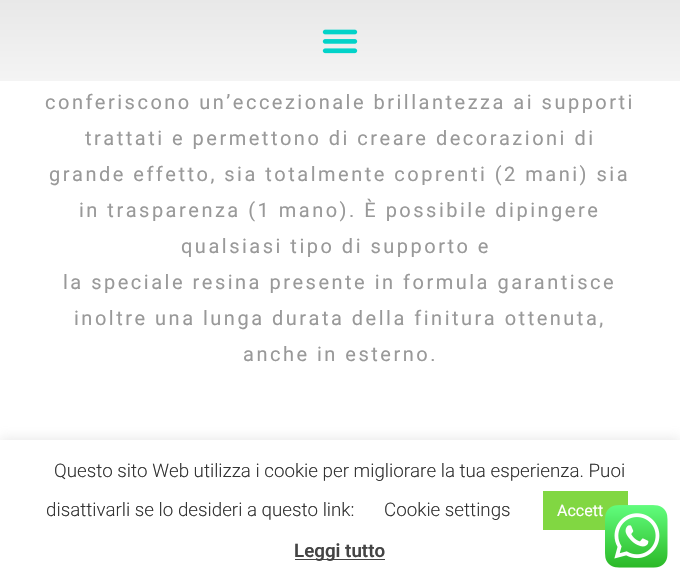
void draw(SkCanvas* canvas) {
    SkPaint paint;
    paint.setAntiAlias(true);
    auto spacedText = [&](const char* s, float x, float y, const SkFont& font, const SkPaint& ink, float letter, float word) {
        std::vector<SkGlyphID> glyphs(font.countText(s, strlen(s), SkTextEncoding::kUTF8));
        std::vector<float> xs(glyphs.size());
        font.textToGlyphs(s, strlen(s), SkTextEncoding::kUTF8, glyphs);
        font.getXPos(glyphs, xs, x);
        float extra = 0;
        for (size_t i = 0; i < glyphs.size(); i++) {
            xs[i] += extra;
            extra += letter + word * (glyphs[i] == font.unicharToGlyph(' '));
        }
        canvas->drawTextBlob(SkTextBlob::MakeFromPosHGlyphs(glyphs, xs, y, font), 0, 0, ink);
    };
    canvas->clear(0xFFFFFFFF);
    {
        const SkColor colors[] = {0xFFE8E8E8, 0xFFF4F4F4};
        const float stops[] = {0, 1};
        const SkPoint ends[] = {{340, 0}, {340, 81}};
        paint.setShader(SkGradientShader::MakeLinear(ends, colors, stops, 2, SkTileMode::kClamp));
        paint.setAlpha(255);
    }
    canvas->drawRect(SkRect::MakeXYWH(0, 0, 680, 81), paint);
    canvas->drawImageRect(SkImages::DeferredFromEncodedData(SkData::MakeFromFileName("img1.png")), SkRect::MakeXYWH(322, 29, 36, 25), SkSamplingOptions());
    SkFont font1(fontMgr->matchFamilyStyle("Roboto", SkFontStyle::Normal()), 20);
    font1.setSubpixel(true);
    paint.setShader(nullptr);
    paint.setColor(0xFF999999);
    spacedText("conferiscono un’eccezionale brillantezza ai supporti", 45, 109, font1, paint, 2.5f, 0);
    spacedText("trattati e permettono di creare decorazioni di", 85, 145, font1, paint, 2.5f, 0);
    spacedText("grande effetto, sia totalmente coprenti (2 mani) sia", 49, 181, font1, paint, 2.5f, 0);
    spacedText("in trasparenza (1 mano). È possibile dipingere", 79, 217, font1, paint, 2.5f, 0);
    spacedText("qualsiasi tipo di supporto e", 181, 253, font1, paint, 2.5f, 0);
    spacedText("la speciale resina presente in formula garantisce", 63, 289, font1, paint, 2.5f, 0);
    spacedText("inoltre una lunga durata della finitura ottenuta,", 74, 325, font1, paint, 2.5f, 0);
    spacedText("anche in esterno.", 243, 361, font1, paint, 2.5f, 0);
    paint.setColor(0x4DACABAB);
    paint.setMaskFilter(SkMaskFilter::MakeBlur(kNormal_SkBlurStyle, 6));
    canvas->drawRect(SkRect::MakeXYWH(0, 439, 680, 140), paint);
    paint.setMaskFilter(nullptr);
    paint.setColor(0xFFFFFFFF);
    canvas->drawRect(SkRect::MakeXYWH(0, 440, 680, 140), paint);
    SkFont font2(fontMgr->matchFamilyStyle("Roboto", SkFontStyle(300, SkFontStyle::kNormal_Width, SkFontStyle::kUpright_Slant)), 18.75f);
    font2.setSubpixel(true);
    paint.setColor(0xFF333333);
    canvas->drawString("Questo sito Web utilizza i cookie per migliorare la tua esperienza. Puoi", 54, 477, font2, paint);
    canvas->drawString("disattivarli se lo desideri a questo link:", 46, 516, font2, paint);
    canvas->drawString("Cookie settings", 384, 516, font2, paint);
    paint.setColor(0xFF81D742);
    canvas->drawRect(SkRect::MakeXYWH(543, 491, 85, 39), paint);
    SkFont font3(fontMgr->matchFamilyStyle("Roboto", SkFontStyle::Normal()), 16);
    font3.setSubpixel(true);
    paint.setColor(0xFFFFFFFF);
    canvas->drawString("Accett", 557, 516, font3, paint);
    paint.setColor(0xFF444444);
    canvas->drawRect(SkRect::MakeXYWH(295, 559, 90, 1), paint);
    SkFont font4(fontMgr->matchFamilyStyle("Roboto", SkFontStyle(600, SkFontStyle::kNormal_Width, SkFontStyle::kUpright_Slant)), 18.75f);
    font4.setSubpixel(true);
    canvas->drawString("Leggi tutto", 294, 557, font4, paint);
    canvas->drawImageRect(SkImages::DeferredFromEncodedData(SkData::MakeFromFileName("img2.png")), SkRect::MakeXYWH(605, 505, 63, 63), SkSamplingOptions());
}
